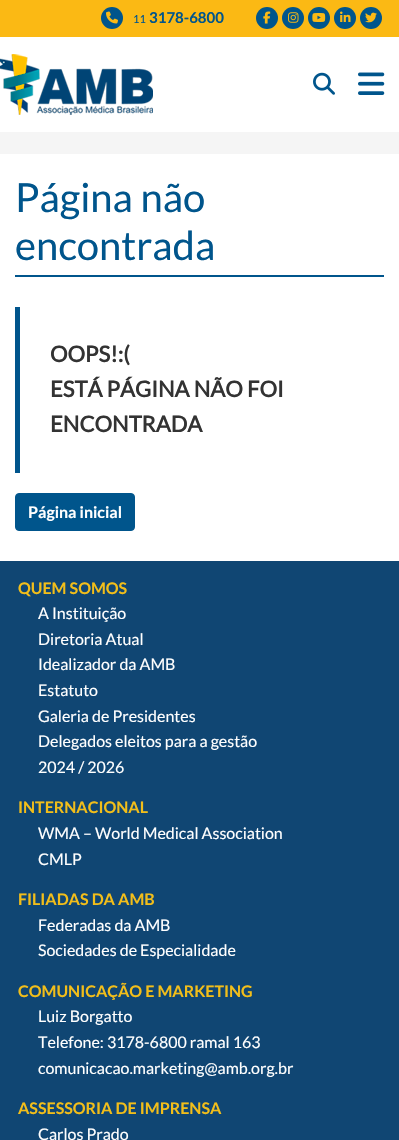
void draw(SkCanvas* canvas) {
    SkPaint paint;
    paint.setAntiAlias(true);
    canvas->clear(0xFFF5F5F5);
    paint.setColor(0xFFFFFFFF);
    canvas->drawRect(SkRect::MakeXYWH(0, 37, 399, 95), paint);
    paint.setColor(0xFFFBB914);
    canvas->drawRect(SkRect::MakeXYWH(0, 0, 399, 37), paint);
    paint.setColor(0xFF00558C);
    canvas->drawCircle(112, 18, 11, paint);
    canvas->drawImageRect(SkImages::DeferredFromEncodedData(SkData::MakeFromFileName("img1.png")), SkRect::MakeXYWH(106, 11, 12, 13), SkSamplingOptions());
    SkFont font1(fontMgr->matchFamilyStyle("Lato", SkFontStyle::Normal()), 11);
    font1.setSubpixel(true);
    canvas->drawString("11", 133, 23, font1, paint);
    SkFont font2(fontMgr->matchFamilyStyle("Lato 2", SkFontStyle::Bold()), 15);
    font2.setSubpixel(true);
    canvas->drawString("3178-6800", 149, 23, font2, paint);
    canvas->drawCircle(267, 18, 11, paint);
    canvas->drawImageRect(SkImages::DeferredFromEncodedData(SkData::MakeFromFileName("img2.png")), SkRect::MakeXYWH(263, 11, 8, 13), SkSamplingOptions());
    canvas->drawCircle(293, 18, 11, paint);
    canvas->drawImageRect(SkImages::DeferredFromEncodedData(SkData::MakeFromFileName("img3.png")), SkRect::MakeXYWH(288, 12, 11, 11), SkSamplingOptions());
    canvas->drawCircle(319, 18, 11, paint);
    canvas->drawImageRect(SkImages::DeferredFromEncodedData(SkData::MakeFromFileName("img4.png")), SkRect::MakeXYWH(312, 13, 14, 9), SkSamplingOptions());
    canvas->drawCircle(345, 18, 11, paint);
    canvas->drawImageRect(SkImages::DeferredFromEncodedData(SkData::MakeFromFileName("img5.png")), SkRect::MakeXYWH(340, 11, 11, 11), SkSamplingOptions());
    canvas->drawCircle(371, 18, 11, paint);
    canvas->drawImageRect(SkImages::DeferredFromEncodedData(SkData::MakeFromFileName("img6.png")), SkRect::MakeXYWH(365, 12, 12, 11), SkSamplingOptions());
    canvas->drawImageRect(SkImages::DeferredFromEncodedData(SkData::MakeFromFileName("img7.png")), SkRect::MakeXYWH(0, 54, 153, 61), SkSamplingOptions());
    canvas->drawImageRect(SkImages::DeferredFromEncodedData(SkData::MakeFromFileName("img8.png")), SkRect::MakeXYWH(313, 72, 22, 23), SkSamplingOptions());
    canvas->drawImageRect(SkImages::DeferredFromEncodedData(SkData::MakeFromFileName("img9.png")), SkRect::MakeXYWH(358, 72, 27, 23), SkSamplingOptions());
    paint.setColor(0xFFFFFFFF);
    canvas->drawRect(SkRect::MakeXYWH(0, 154, 399, 407), paint);
    paint.setColor(0xFF00558C);
    canvas->drawRect(SkRect::MakeXYWH(15, 275, 369, 2), paint);
    SkFont font3(fontMgr->matchFamilyStyle("Lato", SkFontStyle::Normal()), 40);
    font3.setSubpixel(true);
    canvas->drawString("Página não", 15, 212, font3, paint);
    canvas->drawString("encontrada", 15, 260, font3, paint);
    canvas->drawRect(SkRect::MakeXYWH(15, 307, 5, 166), paint);
    SkFont font4(fontMgr->matchFamilyStyle("Lato", SkFontStyle::Bold()), 22);
    font4.setSubpixel(true);
    paint.setColor(0xFF333333);
    canvas->drawString("OOPS!:(", 50, 362, font4, paint);
    canvas->drawString("ESTÁ PÁGINA NÃO FOI", 50, 397, font4, paint);
    canvas->drawString("ENCONTRADA", 50, 432, font4, paint);
    paint.setColor(0xFF00558C);
    canvas->drawRoundRect(SkRect::MakeXYWH(15.5f, 493.5f, 119, 37), 3.5f, 3.5f, paint);
    paint.setStyle(SkPaint::kStroke_Style);
    paint.setStrokeWidth(1);
    canvas->drawRoundRect(SkRect::MakeXYWH(15.5f, 493.5f, 119, 37), 3.5f, 3.5f, paint);
    SkFont font5(fontMgr->matchFamilyStyle("Lato 2", SkFontStyle::Bold()), 16);
    font5.setSubpixel(true);
    paint.setStyle(SkPaint::kFill_Style);
    paint.setColor(0xFFFFFFFF);
    canvas->drawString("Página inicial", 28, 518, font5, paint);
    paint.setColor(0xFF104673);
    canvas->drawRect(SkRect::MakeXYWH(0, 561, 399, 579), paint);
    paint.setColor(0xFFF2BE1A);
    canvas->drawString("QUEM SOMOS", 18, 594, font5, paint);
    SkFont font6(fontMgr->matchFamilyStyle("Lato", SkFontStyle::Normal()), 16);
    font6.setSubpixel(true);
    paint.setColor(0xFFFFFFFF);
    canvas->drawString("A Instituição", 38, 619, font6, paint);
    canvas->drawString("Diretoria Atual", 38, 645, font6, paint);
    canvas->drawString("Idealizador da AMB", 38, 670, font6, paint);
    canvas->drawString("Estatuto", 38, 696, font6, paint);
    canvas->drawString("Galeria de Presidentes", 38, 722, font6, paint);
    canvas->drawString("Delegados eleitos para a gestão", 38, 747, font6, paint);
    canvas->drawString("2024 / 2026", 38, 773, font6, paint);
    paint.setColor(0xFFF2BE1A);
    canvas->drawString("INTERNACIONAL", 18, 813, font5, paint);
    paint.setColor(0xFFFFFFFF);
    canvas->drawString("WMA – World Medical Association", 38, 839, font6, paint);
    canvas->drawString("CMLP", 38, 865, font6, paint);
    paint.setColor(0xFFF2BE1A);
    canvas->drawString("FILIADAS DA AMB", 18, 905, font5, paint);
    paint.setColor(0xFFFFFFFF);
    canvas->drawString("Federadas da AMB", 38, 931, font6, paint);
    canvas->drawString("Sociedades de Especialidade", 38, 956, font6, paint);
    paint.setColor(0xFFF2BE1A);
    canvas->drawString("COMUNICAÇÃO E MARKETING", 18, 997, font5, paint);
    paint.setColor(0xFFFFFFFF);
    canvas->drawString("Luiz Borgatto", 38, 1022, font6, paint);
    canvas->drawString("Telefone: 3178-6800 ramal 163", 38, 1048, font6, paint);
    canvas->drawString("comunicacao.marketing@amb.org.br", 38, 1074, font6, paint);
    paint.setColor(0xFFF2BE1A);
    canvas->drawString("ASSESSORIA DE IMPRENSA", 18, 1114, font5, paint);
    paint.setColor(0xFFFFFFFF);
    canvas->drawString("Carlos Prado", 38, 1140, font6, paint);
}
